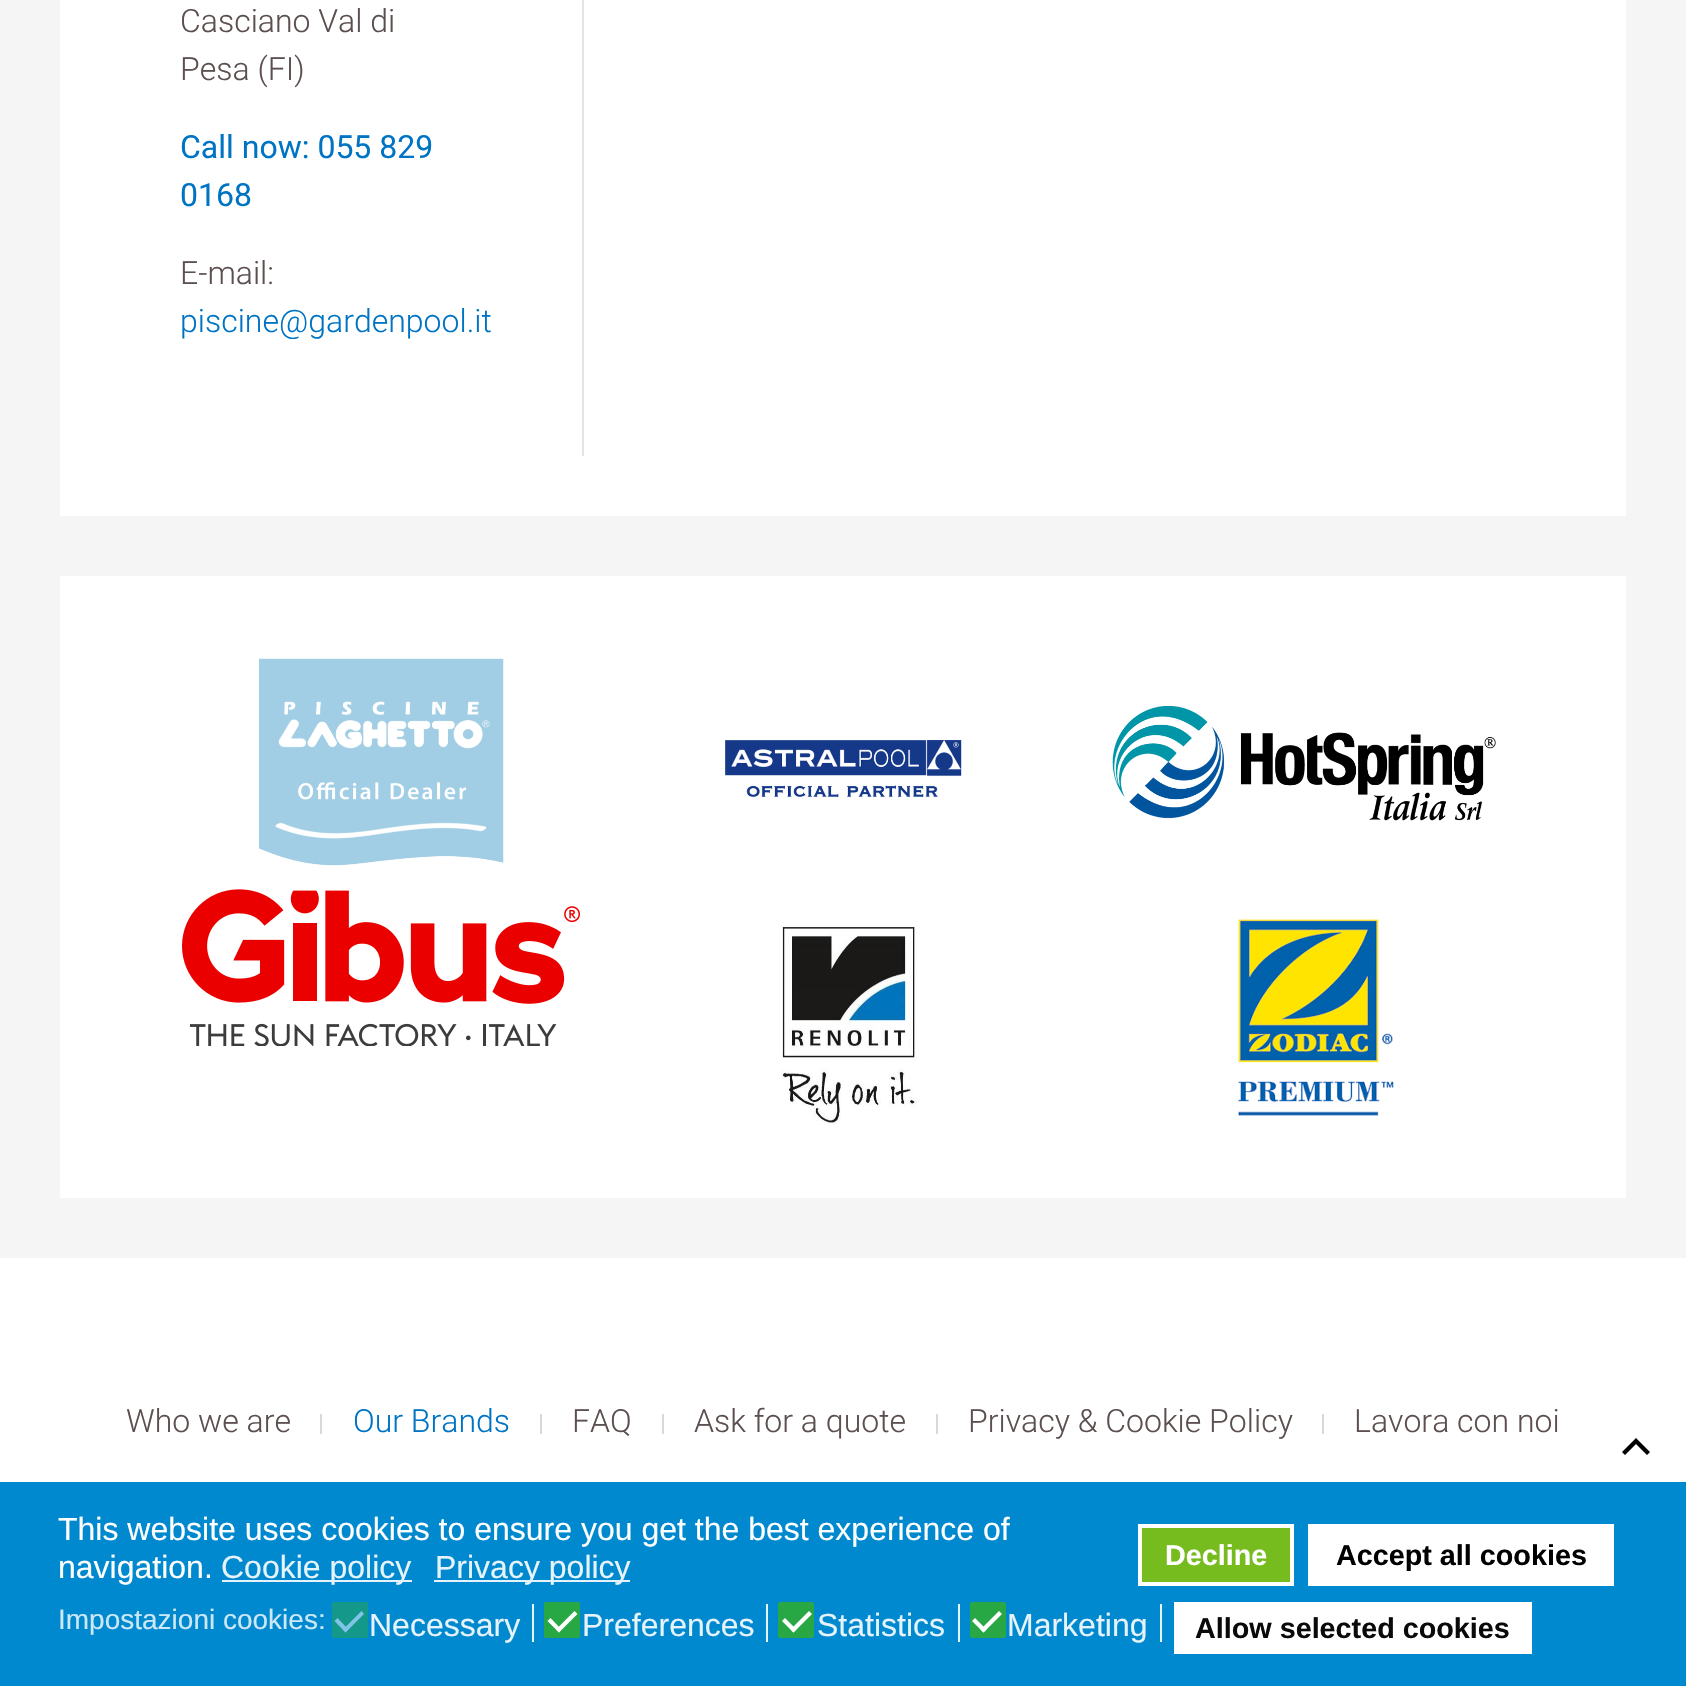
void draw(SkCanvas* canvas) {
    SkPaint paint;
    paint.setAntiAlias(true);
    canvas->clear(0xFFF5F5F5);
    paint.setColor(0xFFFFFFFF);
    canvas->drawRect(SkRect::MakeXYWH(60, 0, 1566, 516), paint);
    SkFont font1(fontMgr->matchFamilyStyle("Roboto", SkFontStyle(300, SkFontStyle::kNormal_Width, SkFontStyle::kUpright_Slant)), 32);
    font1.setSubpixel(true);
    paint.setColor(0xFF5C4F4F);
    canvas->drawString("Casciano Val di", 180, 32, font1, paint);
    canvas->drawString("Pesa (FI)", 180, 80, font1, paint);
    SkFont font2(fontMgr->matchFamilyStyle("Roboto", SkFontStyle::Normal()), 32);
    font2.setSubpixel(true);
    paint.setColor(0xFF0074C4);
    canvas->drawString("Call now: 055 829", 180, 158, font2, paint);
    canvas->drawString("0168", 180, 206, font2, paint);
    paint.setColor(0xFF5C4F4F);
    canvas->drawString("E-mail:", 180, 284, font1, paint);
    paint.setColor(0xFF0074C4);
    canvas->drawString("piscine@gardenpool.it", 180, 332, font1, paint);
    paint.setColor(0xFFE4E4E4);
    canvas->drawRect(SkRect::MakeXYWH(582, 0, 2, 456), paint);
    paint.setColor(0xFFFFFFFF);
    canvas->drawRect(SkRect::MakeXYWH(60, 576, 1566, 622), paint);
    canvas->drawImageRect(SkImages::DeferredFromEncodedData(SkData::MakeFromFileName("img1.png")), SkRect::MakeXYWH(259, 658, 245, 208), SkSamplingOptions());
    canvas->drawImageRect(SkImages::DeferredFromEncodedData(SkData::MakeFromFileName("img2.png")), SkRect::MakeXYWH(725, 740, 237, 58), SkSamplingOptions());
    canvas->drawImageRect(SkImages::DeferredFromEncodedData(SkData::MakeFromFileName("img3.png")), SkRect::MakeXYWH(1112, 706, 384, 115), SkSamplingOptions());
    canvas->drawImageRect(SkImages::DeferredFromEncodedData(SkData::MakeFromFileName("img4.png")), SkRect::MakeXYWH(182, 889, 398, 157), SkSamplingOptions());
    canvas->drawImageRect(SkImages::DeferredFromEncodedData(SkData::MakeFromFileName("img5.png")), SkRect::MakeXYWH(781, 925, 136, 199), SkSamplingOptions());
    canvas->drawImageRect(SkImages::DeferredFromEncodedData(SkData::MakeFromFileName("img6.png")), SkRect::MakeXYWH(1238, 919, 156, 197), SkSamplingOptions());
    canvas->drawRect(SkRect::MakeXYWH(0, 1258, 1686, 224), paint);
    paint.setColor(0xFF5C4F4F);
    canvas->drawString("Who we are", 126, 1432, font1, paint);
    paint.setColor(0xFFD8D8D8);
    canvas->drawRect(SkRect::MakeXYWH(320, 1414, 2, 20), paint);
    paint.setColor(0xFF0074C4);
    canvas->drawString("Our Brands", 353, 1432, font1, paint);
    paint.setColor(0xFFD8D8D8);
    canvas->drawRect(SkRect::MakeXYWH(540, 1414, 2, 20), paint);
    paint.setColor(0xFF5C4F4F);
    canvas->drawString("FAQ", 572, 1432, font1, paint);
    paint.setColor(0xFFD8D8D8);
    canvas->drawRect(SkRect::MakeXYWH(662, 1414, 2, 20), paint);
    paint.setColor(0xFF5C4F4F);
    canvas->drawString("Ask for a quote", 694, 1432, font1, paint);
    paint.setColor(0xFFD8D8D8);
    canvas->drawRect(SkRect::MakeXYWH(936, 1414, 2, 20), paint);
    paint.setColor(0xFF5C4F4F);
    canvas->drawString("Privacy & Cookie Policy", 968, 1432, font1, paint);
    paint.setColor(0xFFD8D8D8);
    canvas->drawRect(SkRect::MakeXYWH(1322, 1414, 2, 20), paint);
    paint.setColor(0xFF5C4F4F);
    canvas->drawString("Lavora con noi", 1354, 1432, font1, paint);
    paint.setColor(0xFF000000);
    canvas->drawPath(SkPathBuilder().moveTo(1647, 1455).lineTo(1636, 1444).lineTo(1625, 1455).lineTo(1622, 1452).lineTo(1636, 1438).lineTo(1650, 1452).close().detach(), paint);
    paint.setColor(0xFF0089CF);
    canvas->drawRect(SkRect::MakeXYWH(0, 1482, 1686, 204), paint);
    SkFont font3(fontMgr->matchFamilyStyle("Liberation Sans", SkFontStyle::Normal()), 32);
    font3.setSubpixel(true);
    paint.setColor(0xFFFFFFFF);
    canvas->drawString("This website uses cookies to ensure you get the best experience of", 58, 1540, font3, paint);
    canvas->drawString("navigation.", 58, 1578, font3, paint);
    paint.setColor(0xFFE6F3FA);
    canvas->drawRect(SkRect::MakeXYWH(222, 1580, 190, 2), paint);
    canvas->drawString("Cookie policy", 221, 1578, font3, paint);
    canvas->drawRect(SkRect::MakeXYWH(434, 1580, 196, 2), paint);
    canvas->drawString("Privacy policy", 435, 1578, font3, paint);
    paint.setColor(0xFF76BC1E);
    canvas->drawRect(SkRect::MakeXYWH(1140, 1526, 152, 58), paint);
    paint.setStyle(SkPaint::kStroke_Style);
    paint.setStrokeWidth(4);
    paint.setColor(0xFFFFFFFF);
    canvas->drawRect(SkRect::MakeXYWH(1140, 1526, 152, 58), paint);
    SkFont font4(fontMgr->matchFamilyStyle("Liberation Sans", SkFontStyle::Bold()), 28.75f);
    font4.setSubpixel(true);
    paint.setStyle(SkPaint::kFill_Style);
    canvas->drawString("Decline", 1165, 1565, font4, paint);
    canvas->drawRect(SkRect::MakeXYWH(1308, 1524, 306, 62), paint);
    paint.setColor(0xFF000000);
    canvas->drawString("Accept all cookies", 1336, 1565, font4, paint);
    SkFont font5(fontMgr->matchFamilyStyle("Liberation Sans", SkFontStyle::Normal()), 28);
    font5.setSubpixel(true);
    paint.setColor(0xFFCCE7F5);
    canvas->drawString("Impostazioni cookies:", 58, 1629, font5, paint);
    paint.setColor(0xFF14988A);
    canvas->drawRoundRect(SkRect::MakeXYWH(333, 1603, 34, 34), 1, 1, paint);
    paint.setStyle(SkPaint::kStroke_Style);
    paint.setStrokeWidth(2);
    canvas->drawRoundRect(SkRect::MakeXYWH(333, 1603, 34, 34), 1, 1, paint);
    paint.setStyle(SkPaint::kFill_Style);
    paint.setColor(0xFF80C4E7);
    canvas->drawPath(SkPathBuilder().moveTo(361.5f, 1611).lineTo(364, 1614).lineTo(345.5f, 1632.5f).lineTo(343, 1629.5f).close().detach(), paint);
    canvas->drawPath(SkPathBuilder().moveTo(337.5f, 1618).lineTo(348.5f, 1629.5f).lineTo(345.5f, 1632.5f).lineTo(334.5f, 1621).close().detach(), paint);
    paint.setColor(0xFFE6F3FA);
    canvas->drawRect(SkRect::MakeXYWH(532, 1604, 2, 38), paint);
    canvas->drawString("Necessary", 369, 1636, font3, paint);
    paint.setColor(0xFF28A745);
    canvas->drawRoundRect(SkRect::MakeXYWH(545, 1603, 34, 34), 1, 1, paint);
    paint.setStyle(SkPaint::kStroke_Style);
    canvas->drawRoundRect(SkRect::MakeXYWH(545, 1603, 34, 34), 1, 1, paint);
    paint.setStyle(SkPaint::kFill_Style);
    paint.setColor(0xFFFFFFFF);
    canvas->drawPath(SkPathBuilder().moveTo(574.5f, 1611).lineTo(577.5f, 1614).lineTo(559, 1632.5f).lineTo(556, 1629.5f).close().detach(), paint);
    canvas->drawPath(SkPathBuilder().moveTo(550.5f, 1618).lineTo(561.5f, 1629.5f).lineTo(559, 1632.5f).lineTo(547.5f, 1621).close().detach(), paint);
    paint.setColor(0xFFE6F3FA);
    canvas->drawRect(SkRect::MakeXYWH(766, 1604, 2, 38), paint);
    canvas->drawString("Preferences", 582, 1636, font3, paint);
    paint.setColor(0xFF28A745);
    canvas->drawRoundRect(SkRect::MakeXYWH(779, 1603, 34, 34), 1, 1, paint);
    paint.setStyle(SkPaint::kStroke_Style);
    canvas->drawRoundRect(SkRect::MakeXYWH(779, 1603, 34, 34), 1, 1, paint);
    paint.setStyle(SkPaint::kFill_Style);
    paint.setColor(0xFFFFFFFF);
    canvas->drawPath(SkPathBuilder().moveTo(809, 1611).lineTo(812, 1614).lineTo(793.5f, 1632.5f).lineTo(790.5f, 1629.5f).close().detach(), paint);
    canvas->drawPath(SkPathBuilder().moveTo(785, 1618).lineTo(796.5f, 1629.5f).lineTo(793.5f, 1632.5f).lineTo(782, 1621).close().detach(), paint);
    paint.setColor(0xFFE6F3FA);
    canvas->drawRect(SkRect::MakeXYWH(958, 1604, 2, 38), paint);
    canvas->drawString("Statistics", 817, 1636, font3, paint);
    paint.setColor(0xFF28A745);
    canvas->drawRoundRect(SkRect::MakeXYWH(971, 1603, 34, 34), 1, 1, paint);
    paint.setStyle(SkPaint::kStroke_Style);
    canvas->drawRoundRect(SkRect::MakeXYWH(971, 1603, 34, 34), 1, 1, paint);
    paint.setStyle(SkPaint::kFill_Style);
    paint.setColor(0xFFFFFFFF);
    canvas->drawPath(SkPathBuilder().moveTo(999, 1611).lineTo(1002, 1614).lineTo(983.5f, 1632.5f).lineTo(980.5f, 1629.5f).close().detach(), paint);
    canvas->drawPath(SkPathBuilder().moveTo(975, 1618).lineTo(986.5f, 1629.5f).lineTo(983.5f, 1632.5f).lineTo(972, 1621).close().detach(), paint);
    paint.setColor(0xFFE6F3FA);
    canvas->drawRect(SkRect::MakeXYWH(1160, 1604, 2, 38), paint);
    canvas->drawString("Marketing", 1007, 1636, font3, paint);
    paint.setColor(0xFFFFFFFF);
    canvas->drawRect(SkRect::MakeXYWH(1174, 1602, 358, 52), paint);
    paint.setColor(0xFF0A0A0A);
    canvas->drawString("Allow selected cookies", 1195, 1638, font4, paint);
}
